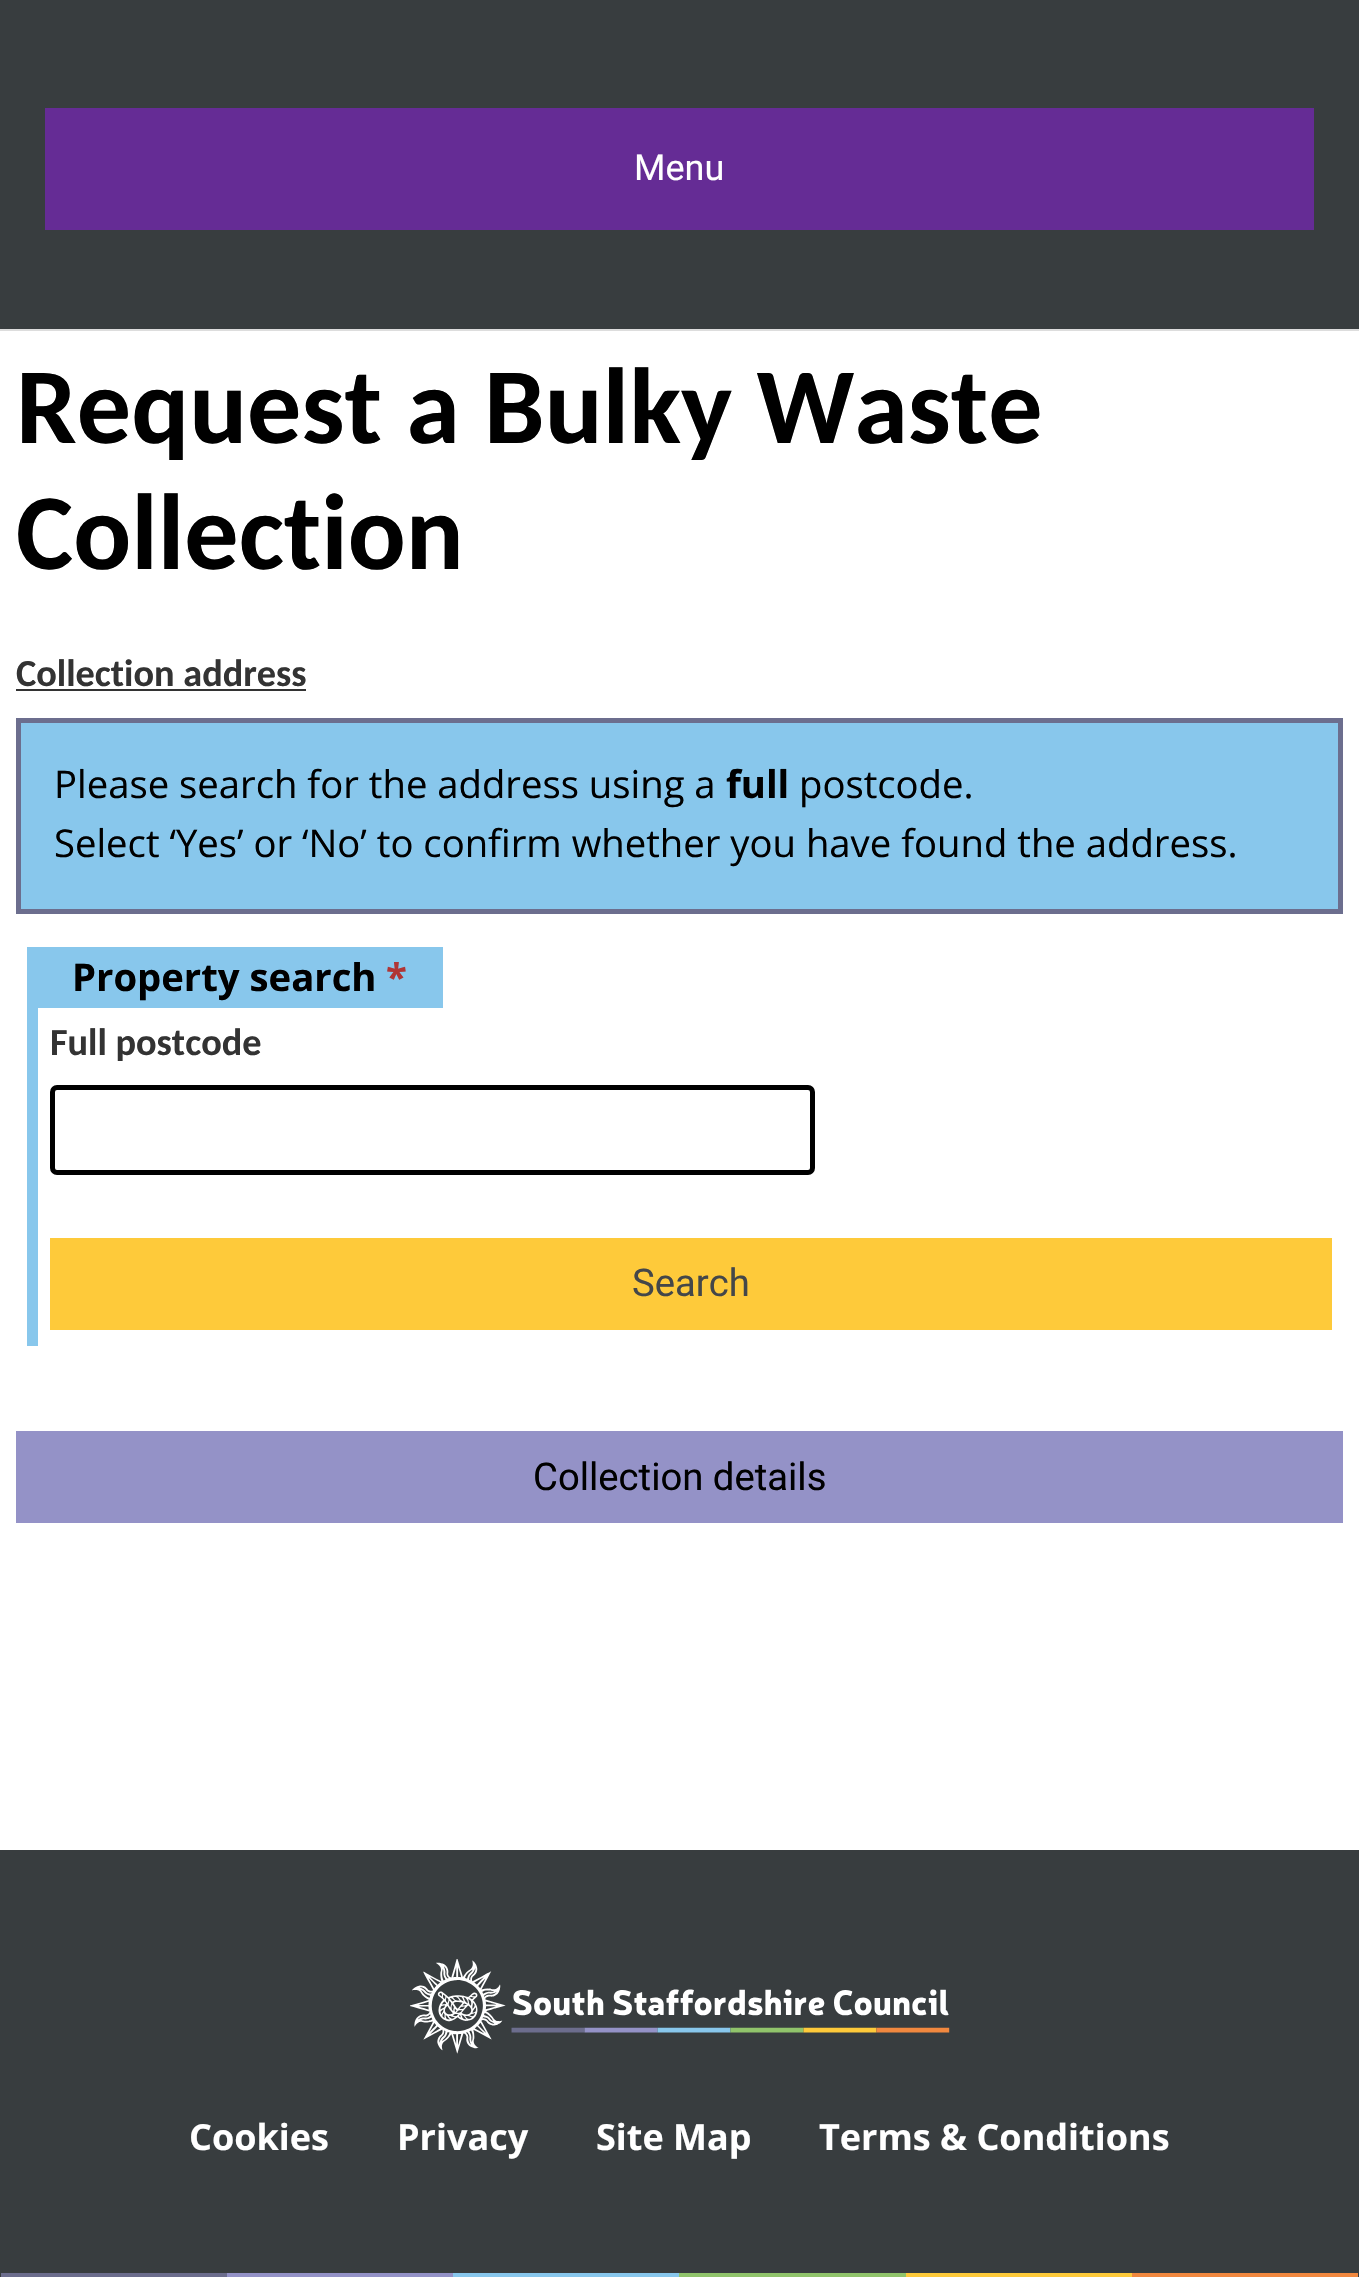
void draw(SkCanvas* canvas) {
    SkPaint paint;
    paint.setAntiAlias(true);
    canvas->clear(0xFFFFFFFF);
    paint.setColor(0xFFDDDDDD);
    canvas->drawRect(SkRect::MakeXYWH(0, 329, 1359, 2), paint);
    paint.setColor(0xFF383D3F);
    canvas->drawRect(SkRect::MakeXYWH(0, 0, 1359, 329), paint);
    paint.setColor(0xFF652C95);
    canvas->drawRect(SkRect::MakeXYWH(45, 108, 1269, 122), paint);
    SkFont font1(fontMgr->matchFamilyStyle("Roboto", SkFontStyle::Normal()), 36);
    font1.setSubpixel(true);
    paint.setColor(0xFFFFFFFF);
    canvas->drawString("Menu", 634, 180, font1, paint);
    SkFont font2(fontMgr->matchFamilyStyle("Carlito", SkFontStyle::Bold()), 108);
    font2.setSubpixel(true);
    paint.setColor(0xFF000000);
    canvas->drawString("Request a Bulky Waste", 16, 443, font2, paint);
    canvas->drawString("Collection", 16, 569, font2, paint);
    SkFont font3(fontMgr->matchFamilyStyle("Carlito", SkFontStyle::Bold()), 38.25f);
    font3.setSubpixel(true);
    paint.setColor(0xFF333333);
    canvas->drawString("Collection address", 16, 686, font3, paint);
    canvas->drawRect(SkRect::MakeXYWH(16, 689, 290, 2), paint);
    paint.setColor(0xFF88C7EC);
    canvas->drawRect(SkRect::MakeXYWH(18.5f, 720.5f, 1322, 191), paint);
    paint.setStyle(SkPaint::kStroke_Style);
    paint.setStrokeWidth(5);
    paint.setColor(0xFF6C6E8E);
    canvas->drawRect(SkRect::MakeXYWH(18.5f, 720.5f, 1322, 191), paint);
    SkFont font4(fontMgr->matchFamilyStyle("Open Sans", SkFontStyle::Normal()), 38.25f);
    font4.setSubpixel(true);
    paint.setStyle(SkPaint::kFill_Style);
    paint.setColor(0xFF000000);
    canvas->drawString("Please search for the address using a", 54, 798, font4, paint);
    SkFont font5(fontMgr->matchFamilyStyle("Open Sans", SkFontStyle::Bold()), 38.25f);
    font5.setSubpixel(true);
    canvas->drawString("full", 726, 798, font5, paint);
    canvas->drawString("postcode.", 799, 798, font4, paint);
    canvas->drawString("Select ‘Yes’ or ‘No’ to confirm whether you have found the address.", 54, 857, font4, paint);
    paint.setColor(0xFF88C7EC);
    canvas->drawRect(SkRect::MakeXYWH(27, 1008, 11, 338), paint);
    canvas->drawRect(SkRect::MakeXYWH(27, 947, 416, 61), paint);
    paint.setColor(0xFF000000);
    canvas->drawString("Property search", 72, 991, font5, paint);
    paint.setColor(0xFFB03535);
    canvas->drawString("*", 386, 991, font5, paint);
    paint.setColor(0xFF333333);
    canvas->drawString("Full postcode", 50, 1055, font3, paint);
    paint.setStyle(SkPaint::kStroke_Style);
    paint.setColor(0xFF000000);
    canvas->drawRoundRect(SkRect::MakeXYWH(52.5f, 1087.5f, 760, 85), 4.5f, 4.5f, paint);
    paint.setStyle(SkPaint::kFill_Style);
    paint.setColor(0xFFFECA3A);
    canvas->drawRect(SkRect::MakeXYWH(50, 1238, 1282, 92), paint);
    SkFont font6(fontMgr->matchFamilyStyle("Roboto", SkFontStyle::Normal()), 38.25f);
    font6.setSubpixel(true);
    paint.setColor(0xFF444749);
    canvas->drawString("Search", 632, 1296, font6, paint);
    paint.setColor(0xFF9492C7);
    canvas->drawRect(SkRect::MakeXYWH(16, 1431, 1327, 92), paint);
    paint.setColor(0xFF000000);
    canvas->drawString("Collection details", 533, 1490, font6, paint);
    paint.setColor(0xFF383D3F);
    canvas->drawRect(SkRect::MakeXYWH(0, 1850, 1359, 427), paint);
    canvas->drawImageRect(SkImages::DeferredFromEncodedData(SkData::MakeFromFileName("img1.png")), SkRect::MakeXYWH(410, 1959, 540, 95), SkSamplingOptions());
    SkFont font7(fontMgr->matchFamilyStyle("Open Sans", SkFontStyle::Bold()), 36);
    font7.setSubpixel(true);
    paint.setColor(0xFFFFFFFF);
    canvas->drawString("Cookies", 189, 2150, font7, paint);
    canvas->drawString("Privacy", 397, 2150, font7, paint);
    canvas->drawString("Site Map", 596, 2150, font7, paint);
    canvas->drawString("Terms & Conditions", 819, 2150, font7, paint);
    paint.setColor(0xFF6C6D8D);
    canvas->drawRect(SkRect::MakeXYWH(1, 2273, 226, 4), paint);
    paint.setColor(0xFF9492C7);
    canvas->drawRect(SkRect::MakeXYWH(227, 2273, 226, 4), paint);
    paint.setColor(0xFF88C7EC);
    canvas->drawRect(SkRect::MakeXYWH(453, 2273, 227, 4), paint);
    paint.setColor(0xFF90C46B);
    canvas->drawRect(SkRect::MakeXYWH(679, 2273, 227, 4), paint);
    paint.setColor(0xFFFECA3A);
    canvas->drawRect(SkRect::MakeXYWH(906, 2273, 226, 4), paint);
    paint.setColor(0xFFF1883F);
    canvas->drawRect(SkRect::MakeXYWH(1132, 2273, 226, 4), paint);
}
